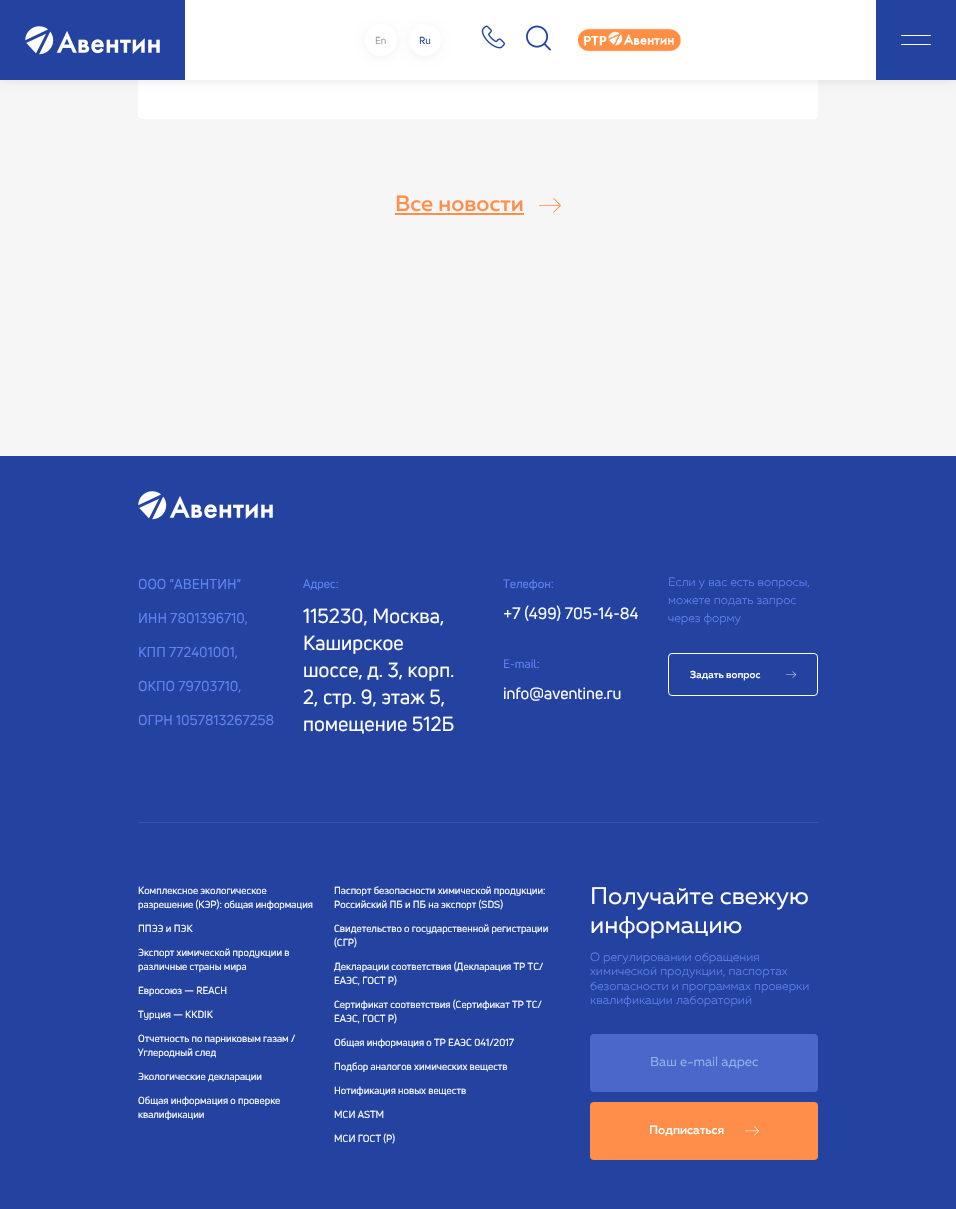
void draw(SkCanvas* canvas) {
    SkPaint paint;
    paint.setAntiAlias(true);
    canvas->clear(0xFFF6F6F6);
    paint.setColor(0xFFFFFFFF);
    canvas->drawRoundRect(SkRect::MakeXYWH(138, -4, 680, 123), 4, 4, paint);
    paint.setColor(0x1A000000);
    paint.setMaskFilter(SkMaskFilter::MakeBlur(kNormal_SkBlurStyle, 5));
    canvas->drawRect(SkRect::MakeXYWH(0, 0, 956, 80), paint);
    paint.setMaskFilter(nullptr);
    paint.setColor(0xFFFFFFFF);
    canvas->drawRect(SkRect::MakeXYWH(185, 0, 691, 80), paint);
    paint.setColor(0xFF2443A1);
    canvas->drawRect(SkRect::MakeXYWH(0, 0, 185, 80), paint);
    canvas->drawImageRect(SkImages::DeferredFromEncodedData(SkData::MakeFromFileName("img1.png")), SkRect::MakeXYWH(25, 26, 135, 29), SkSamplingOptions());
    paint.setColor(0x0D000000);
    paint.setMaskFilter(SkMaskFilter::MakeBlur(kNormal_SkBlurStyle, 5));
    canvas->drawRoundRect(SkRect::MakeXYWH(365, 26, 32, 32), 16, 16, paint);
    paint.setMaskFilter(nullptr);
    paint.setColor(0xFFFFFFFF);
    canvas->drawCircle(381, 40, 16, paint);
    SkFont font1(fontMgr->matchFamilyStyle("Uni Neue", SkFontStyle::Normal()), 10);
    font1.setSubpixel(true);
    paint.setColor(0xFF9A9FA9);
    canvas->drawString("En", 375, 44, font1, paint);
    paint.setColor(0x0D000000);
    paint.setMaskFilter(SkMaskFilter::MakeBlur(kNormal_SkBlurStyle, 5));
    canvas->drawRoundRect(SkRect::MakeXYWH(409, 26, 32, 32), 16, 16, paint);
    paint.setMaskFilter(nullptr);
    paint.setColor(0xFFFFFFFF);
    canvas->drawCircle(425, 40, 16, paint);
    paint.setColor(0xFF2443A1);
    canvas->drawString("Ru", 419, 44, font1, paint);
    canvas->drawImageRect(SkImages::DeferredFromEncodedData(SkData::MakeFromFileName("img2.png")), SkRect::MakeXYWH(481, 25, 24, 24), SkSamplingOptions());
    canvas->drawImageRect(SkImages::DeferredFromEncodedData(SkData::MakeFromFileName("img3.png")), SkRect::MakeXYWH(526, 25, 25, 26), SkSamplingOptions());
    canvas->drawImageRect(SkImages::DeferredFromEncodedData(SkData::MakeFromFileName("img4.png")), SkRect::MakeXYWH(578, 28, 103, 24), SkSamplingOptions());
    canvas->drawRect(SkRect::MakeXYWH(876, 0, 80, 80), paint);
    paint.setColor(0xFFFFFFFF);
    canvas->drawRoundRect(SkRect::MakeXYWH(901, 35, 30, 1), 0.5f, 0.5f, paint);
    canvas->drawRoundRect(SkRect::MakeXYWH(901, 44, 30, 1), 0.5f, 0.5f, paint);
    SkFont font2(fontMgr->matchFamilyStyle("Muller", SkFontStyle(500, SkFontStyle::kNormal_Width, SkFontStyle::kUpright_Slant)), 22);
    font2.setSubpixel(true);
    paint.setColor(0xFFFF8E4B);
    canvas->drawString("Все новости", 395, 211, font2, paint);
    canvas->drawRect(SkRect::MakeXYWH(395, 213, 129, 2), paint);
    canvas->drawImageRect(SkImages::DeferredFromEncodedData(SkData::MakeFromFileName("img5.png")), SkRect::MakeXYWH(539, 198, 22, 15), SkSamplingOptions());
    paint.setColor(0xFF2443A1);
    canvas->drawRect(SkRect::MakeXYWH(0, 456, 956, 753), paint);
    canvas->drawImageRect(SkImages::DeferredFromEncodedData(SkData::MakeFromFileName("img1.png")), SkRect::MakeXYWH(138, 491, 135, 29), SkSamplingOptions());
    paint.setColor(0xFF3A52A7);
    canvas->drawRect(SkRect::MakeXYWH(138, 822, 680, 1), paint);
    SkFont font3(fontMgr->matchFamilyStyle("Uni Neue", SkFontStyle::Normal()), 14);
    font3.setSubpixel(true);
    paint.setColor(0xFF6183F1);
    canvas->drawString("ООО \"АВЕНТИН\"", 138, 589, font3, paint);
    canvas->drawString("ИНН 7801396710,", 138, 623, font3, paint);
    canvas->drawString("КПП 772401001,", 138, 657, font3, paint);
    canvas->drawString("ОКПО 79703710,", 138, 691, font3, paint);
    canvas->drawString("ОГРН 1057813267258", 138, 725, font3, paint);
    SkFont font4(fontMgr->matchFamilyStyle("Uni Neue", SkFontStyle::Normal()), 12);
    font4.setSubpixel(true);
    canvas->drawString("Адрес:", 303, 588, font4, paint);
    SkFont font5(fontMgr->matchFamilyStyle("Uni Neue", SkFontStyle::Normal()), 20);
    font5.setSubpixel(true);
    paint.setColor(0xFFFFFFFF);
    canvas->drawString("115230, Москва,", 303, 623, font5, paint);
    canvas->drawString("Каширское", 303, 650, font5, paint);
    canvas->drawString("шоссе, д. 3, корп.", 303, 677, font5, paint);
    canvas->drawString("2, стр. 9, этаж 5,", 303, 704, font5, paint);
    canvas->drawString("помещение 512Б", 303, 731, font5, paint);
    paint.setColor(0xFF6183F1);
    canvas->drawString("Телефон:", 503, 588, font4, paint);
    SkFont font6(fontMgr->matchFamilyStyle("Uni Neue", SkFontStyle::Normal()), 16);
    font6.setSubpixel(true);
    paint.setColor(0xFFFFFFFF);
    canvas->drawString("+7 (499) 705-14-84", 503, 619, font6, paint);
    paint.setColor(0xFF6183F1);
    canvas->drawString("E-mail:", 503, 668, font4, paint);
    paint.setColor(0xFFFFFFFF);
    canvas->drawString("info@aventine.ru", 503, 699, font6, paint);
    SkFont font7(fontMgr->matchFamilyStyle("Muller", SkFontStyle(300, SkFontStyle::kNormal_Width, SkFontStyle::kUpright_Slant)), 12);
    font7.setSubpixel(true);
    paint.setColor(0xFF6183F1);
    canvas->drawString("Если у вас есть вопросы,", 668, 586, font7, paint);
    canvas->drawString("можете подать запрос", 668, 604, font7, paint);
    canvas->drawString("через форму", 668, 622, font7, paint);
    paint.setStyle(SkPaint::kStroke_Style);
    paint.setStrokeWidth(1);
    paint.setColor(0xFFFFFFFF);
    canvas->drawRoundRect(SkRect::MakeXYWH(668.5f, 653.5f, 149, 42), 3.5f, 3.5f, paint);
    SkFont font8(fontMgr->matchFamilyStyle("Muller", SkFontStyle(500, SkFontStyle::kNormal_Width, SkFontStyle::kUpright_Slant)), 10);
    font8.setSubpixel(true);
    paint.setStyle(SkPaint::kFill_Style);
    canvas->drawString("Задать вопрос", 690, 678, font8, paint);
    canvas->drawImageRect(SkImages::DeferredFromEncodedData(SkData::MakeFromFileName("img6.png")), SkRect::MakeXYWH(786, 671, 10, 7), SkSamplingOptions());
    canvas->drawString("Комплексное экологическое", 138, 894, font1, paint);
    canvas->drawString("разрешение (КЭР): общая информация", 138, 908, font1, paint);
    canvas->drawString("ППЭЭ и ПЭК", 138, 932, font1, paint);
    canvas->drawString("Экспорт химической продукции в", 138, 956, font1, paint);
    canvas->drawString("различные страны мира", 138, 970, font1, paint);
    canvas->drawString("Евросоюз — REACH", 138, 994, font1, paint);
    canvas->drawString("Турция — KKDIK", 138, 1018, font1, paint);
    canvas->drawString("Отчетность по парниковым газам /", 138, 1042, font1, paint);
    canvas->drawString("Углеродный след", 138, 1056, font1, paint);
    canvas->drawString("Экологические декларации", 138, 1080, font1, paint);
    canvas->drawString("Общая информация о проверке", 138, 1104, font1, paint);
    canvas->drawString("квалификации", 138, 1118, font1, paint);
    canvas->drawString("Паспорт безопасности химической продукции:", 334, 894, font1, paint);
    canvas->drawString("Российский ПБ и ПБ на экспорт (SDS)", 334, 908, font1, paint);
    canvas->drawString("Свидетельство о государственной регистрации", 334, 932, font1, paint);
    canvas->drawString("(СГР)", 334, 946, font1, paint);
    canvas->drawString("Декларации соответствия (Декларация ТР ТС/", 334, 970, font1, paint);
    canvas->drawString("ЕАЭС, ГОСТ Р)", 334, 984, font1, paint);
    canvas->drawString("Сертификат соответствия (Сертификат ТР ТС/", 334, 1008, font1, paint);
    canvas->drawString("ЕАЭС, ГОСТ Р)", 334, 1022, font1, paint);
    canvas->drawString("Общая информация о ТР ЕАЭС 041/2017", 334, 1046, font1, paint);
    canvas->drawString("Подбор аналогов химических веществ", 334, 1070, font1, paint);
    canvas->drawString("Нотификация новых веществ", 334, 1094, font1, paint);
    canvas->drawString("МСИ ASTM", 334, 1118, font1, paint);
    canvas->drawString("МСИ ГОСТ (Р)", 334, 1142, font1, paint);
    SkFont font9(fontMgr->matchFamilyStyle("Muller", SkFontStyle::Normal()), 24);
    font9.setSubpixel(true);
    canvas->drawString("Получайте свежую", 590, 904, font9, paint);
    canvas->drawString("информацию", 590, 933, font9, paint);
    paint.setColor(0xFF6183F1);
    canvas->drawString("О регулировании обращения", 590, 961, font7, paint);
    canvas->drawString("химической продукции, паспортах", 590, 975, font7, paint);
    canvas->drawString("безопасности и программах проверки", 590, 990, font7, paint);
    canvas->drawString("квалификации лабораторий", 590, 1004, font7, paint);
    paint.setColor(0xFF4A68C9);
    canvas->drawRoundRect(SkRect::MakeXYWH(590, 1034, 228, 58), 4, 4, paint);
    SkFont font10(fontMgr->matchFamilyStyle("Muller", SkFontStyle::Normal()), 13);
    font10.setSubpixel(true);
    paint.setColor(0xFF8CB5E7);
    canvas->drawString("Ваш e-mail адрес", 650, 1066, font10, paint);
    paint.setColor(0xFFFF8E4B);
    canvas->drawRoundRect(SkRect::MakeXYWH(590, 1102, 228, 58), 4, 4, paint);
    SkFont font11(fontMgr->matchFamilyStyle("Muller", SkFontStyle(500, SkFontStyle::kNormal_Width, SkFontStyle::kUpright_Slant)), 12);
    font11.setSubpixel(true);
    paint.setColor(0xFFFFFFFF);
    canvas->drawString("Подписаться", 649, 1134, font11, paint);
    canvas->drawImageRect(SkImages::DeferredFromEncodedData(SkData::MakeFromFileName("img7.png")), SkRect::MakeXYWH(745, 1126, 14, 10), SkSamplingOptions());
}
